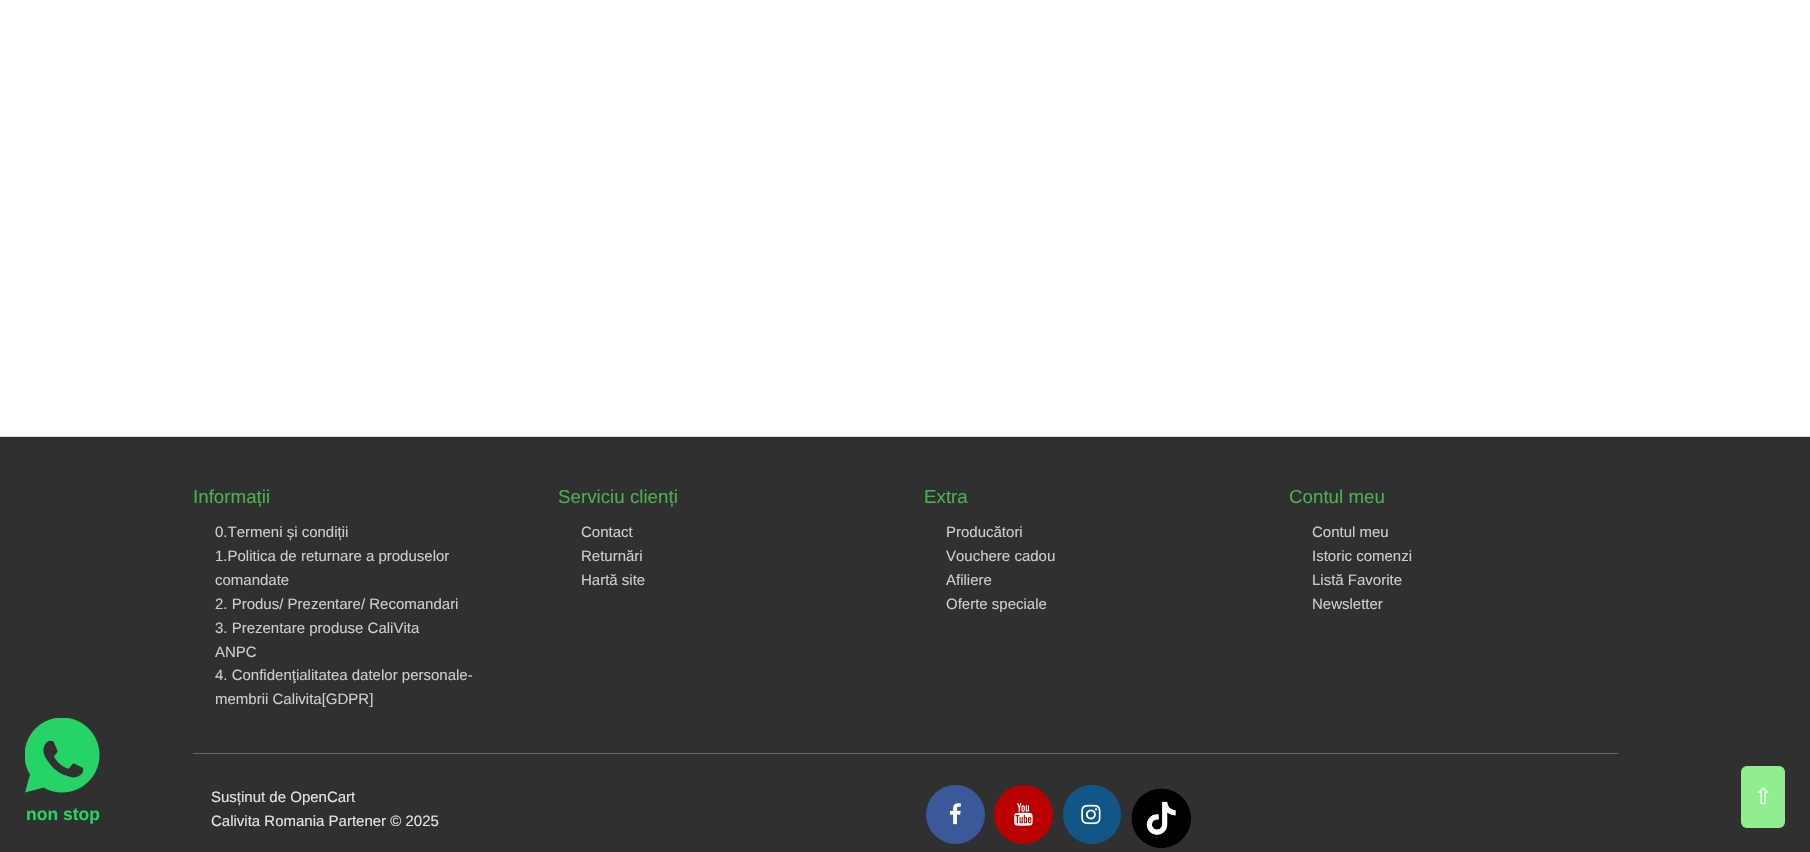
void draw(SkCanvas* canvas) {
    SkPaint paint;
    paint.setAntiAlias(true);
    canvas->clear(0xFFFFFFFF);
    paint.setColor(0xFF303030);
    canvas->drawRect(SkRect::MakeXYWH(0, 437, 1810, 415), paint);
    paint.setColor(0xFFDDDDDD);
    canvas->drawRect(SkRect::MakeXYWH(0, 436, 1810, 1), paint);
    SkFont font1(fontMgr->matchFamilyStyle("Liberation Sans", SkFontStyle::Normal()), 18.75f);
    font1.setSubpixel(true);
    paint.setColor(0xFF4CAF50);
    canvas->drawString("Informații", 193, 503, font1, paint);
    SkFont font2(fontMgr->matchFamilyStyle("Liberation Sans", SkFontStyle::Normal()), 15);
    font2.setSubpixel(true);
    paint.setColor(0xFFCCCCCC);
    canvas->drawString("0.Termeni și condiții", 215, 537, font2, paint);
    canvas->drawString("1.Politica de returnare a produselor", 215, 561, font2, paint);
    canvas->drawString("comandate", 215, 585, font2, paint);
    canvas->drawString("2. Produs/ Prezentare/ Recomandari", 215, 609, font2, paint);
    canvas->drawString("3. Prezentare produse CaliVita", 215, 633, font2, paint);
    canvas->drawString("ANPC", 215, 657, font2, paint);
    canvas->drawString("4. Confidenţialitatea datelor personale-", 215, 680, font2, paint);
    canvas->drawString("membrii Calivita[GDPR]", 215, 704, font2, paint);
    paint.setColor(0xFF4CAF50);
    canvas->drawString("Serviciu clienți", 558, 503, font1, paint);
    paint.setColor(0xFFCCCCCC);
    canvas->drawString("Contact", 581, 537, font2, paint);
    canvas->drawString("Returnări", 581, 561, font2, paint);
    canvas->drawString("Hartă site", 581, 585, font2, paint);
    paint.setColor(0xFF4CAF50);
    canvas->drawString("Extra", 924, 503, font1, paint);
    paint.setColor(0xFFCCCCCC);
    canvas->drawString("Producători", 946, 537, font2, paint);
    canvas->drawString("Vouchere cadou", 946, 561, font2, paint);
    canvas->drawString("Afiliere", 946, 585, font2, paint);
    canvas->drawString("Oferte speciale", 946, 609, font2, paint);
    paint.setColor(0xFF4CAF50);
    canvas->drawString("Contul meu", 1289, 503, font1, paint);
    paint.setColor(0xFFCCCCCC);
    canvas->drawString("Contul meu", 1312, 537, font2, paint);
    canvas->drawString("Istoric comenzi", 1312, 561, font2, paint);
    canvas->drawString("Listă Favorite", 1312, 585, font2, paint);
    canvas->drawString("Newsletter", 1312, 609, font2, paint);
    paint.setColor(0xFF666666);
    canvas->drawRect(SkRect::MakeXYWH(193, 753, 1425, 1), paint);
    paint.setColor(0xFFE2E2E2);
    canvas->drawString("Susținut de OpenCart", 211, 802, font2, paint);
    canvas->drawString("Calivita Romania Partener © 2025", 211, 826, font2, paint);
    paint.setColor(0xFF3B5998);
    canvas->drawCircle(955.5f, 814.5f, 29.5f, paint);
    canvas->drawImageRect(SkImages::DeferredFromEncodedData(SkData::MakeFromFileName("img1.png")), SkRect::MakeXYWH(949, 803, 12, 22), SkSamplingOptions());
    paint.setColor(0xFFBB0000);
    canvas->drawCircle(1023.5f, 814.5f, 29.5f, paint);
    canvas->drawImageRect(SkImages::DeferredFromEncodedData(SkData::MakeFromFileName("img2.png")), SkRect::MakeXYWH(1014, 803, 19, 23), SkSamplingOptions());
    paint.setColor(0xFF125688);
    canvas->drawRoundRect(SkRect::MakeXYWH(1063, 785, 58, 59), 29, 29, paint);
    canvas->drawImageRect(SkImages::DeferredFromEncodedData(SkData::MakeFromFileName("img3.png")), SkRect::MakeXYWH(1081, 804, 20, 21), SkSamplingOptions());
    canvas->drawImageRect(SkImages::DeferredFromEncodedData(SkData::MakeFromFileName("img4.png")), SkRect::MakeXYWH(1131, 788, 60, 60), SkSamplingOptions());
    paint.setColor(0xFF90EE90);
    canvas->drawRoundRect(SkRect::MakeXYWH(1741, 766, 44, 62), 6, 6, paint);
    SkFont font3(fontMgr->matchFamilyStyle("DejaVu Sans", SkFontStyle::Normal()), 22);
    font3.setSubpixel(true);
    paint.setColor(0xFFFFFFFF);
    canvas->drawString("⇧", 1754, 804, font3, paint);
    canvas->drawImageRect(SkImages::DeferredFromEncodedData(SkData::MakeFromFileName("img5.png")), SkRect::MakeXYWH(25, 718, 75, 75), SkSamplingOptions());
    SkFont font4(fontMgr->matchFamilyStyle("Liberation Sans", SkFontStyle::Bold()), 17.5f);
    font4.setSubpixel(true);
    paint.setColor(0xFF25D366);
    canvas->drawString("non stop", 26, 820, font4, paint);
}
